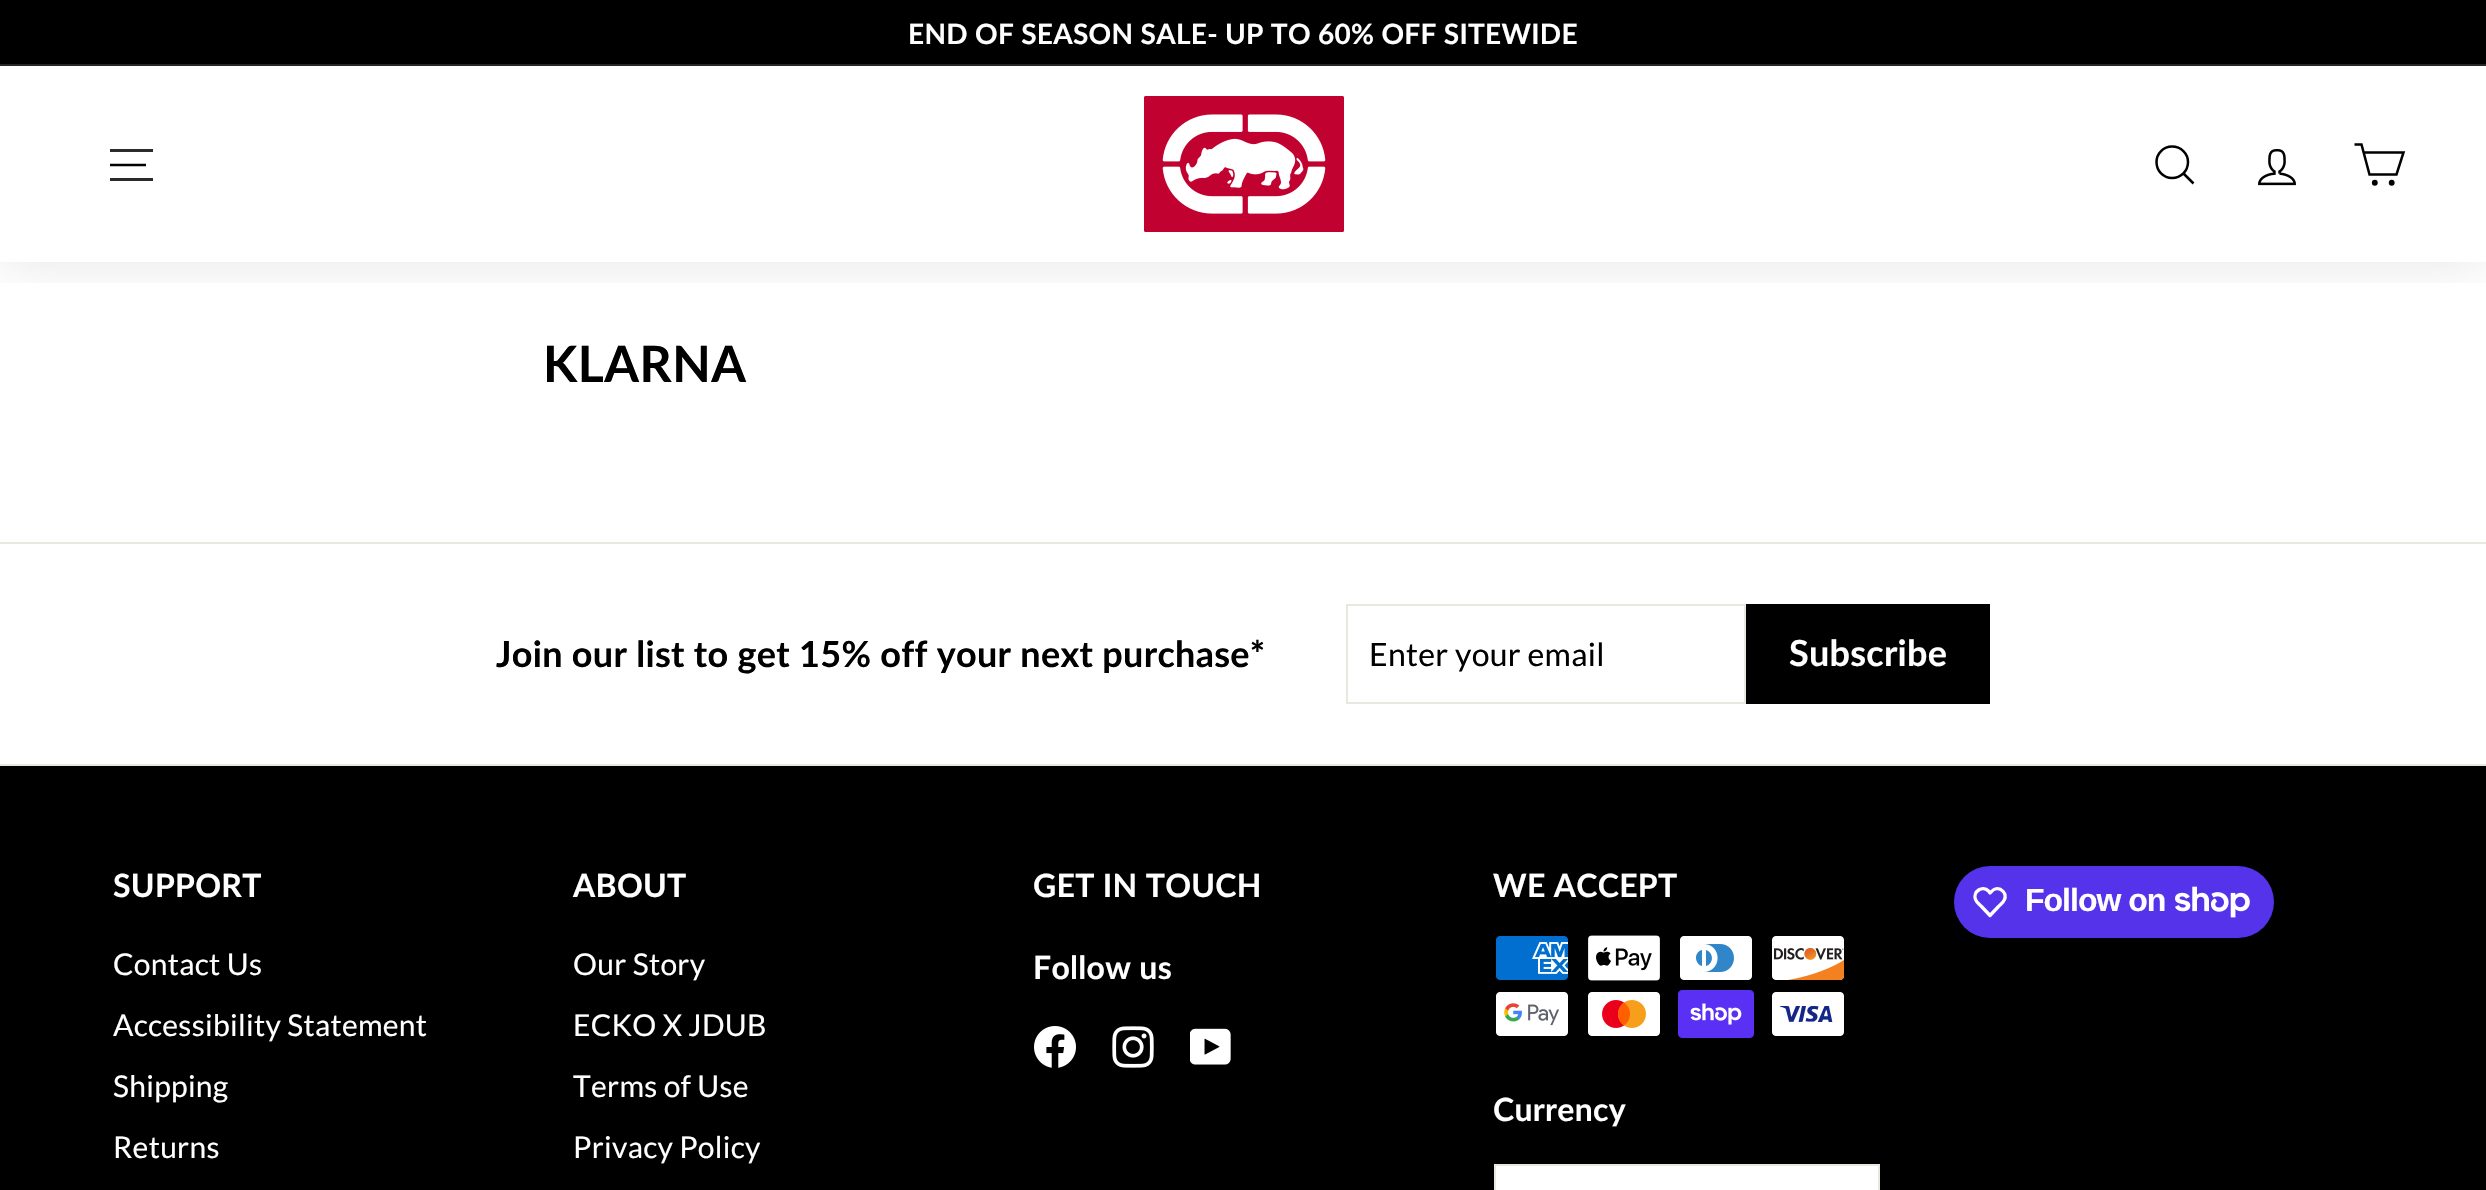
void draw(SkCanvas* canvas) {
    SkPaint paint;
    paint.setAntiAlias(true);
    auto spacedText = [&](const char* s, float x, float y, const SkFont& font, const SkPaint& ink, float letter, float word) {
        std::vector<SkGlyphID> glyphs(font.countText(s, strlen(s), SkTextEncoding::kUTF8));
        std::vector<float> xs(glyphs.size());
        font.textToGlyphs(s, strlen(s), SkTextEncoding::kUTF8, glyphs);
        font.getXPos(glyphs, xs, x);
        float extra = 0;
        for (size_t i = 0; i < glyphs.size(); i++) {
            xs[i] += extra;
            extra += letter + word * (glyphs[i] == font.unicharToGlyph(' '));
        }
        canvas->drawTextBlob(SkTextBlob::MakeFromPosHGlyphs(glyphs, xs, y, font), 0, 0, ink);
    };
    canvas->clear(0xFFFFFFFF);
    canvas->save();
    canvas->clipRect(SkRect::MakeXYWH(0, 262, 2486, 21));
    paint.setColor(0x1A000000);
    paint.setMaskFilter(SkMaskFilter::MakeBlur(kNormal_SkBlurStyle, 25));
    canvas->drawRect(SkRect::MakeXYWH(0, 66, 2486, 196), paint);
    paint.setMaskFilter(nullptr);
    canvas->restore();
    paint.setColor(0xFF2B2B2B);
    canvas->drawRect(SkRect::MakeXYWH(110, 149, 43, 3), paint);
    paint.setStyle(SkPaint::kStroke_Style);
    paint.setStrokeWidth(2.5f);
    paint.setColor(0xFF000000);
    canvas->drawPath(SkPathBuilder().moveTo(110, 165).lineTo(146, 165).detach(), paint);
    paint.setStyle(SkPaint::kFill_Style);
    paint.setColor(0xFF2B2B2B);
    canvas->drawRect(SkRect::MakeXYWH(110, 178, 43, 3), paint);
    canvas->drawImageRect(SkImages::DeferredFromEncodedData(SkData::MakeFromFileName("img1.png")), SkRect::MakeXYWH(1144, 96, 200, 136), SkSamplingOptions());
    paint.setStyle(SkPaint::kStroke_Style);
    paint.setColor(0xFF000000);
    canvas->drawPath(SkPathBuilder().moveTo(2188, 162).cubicTo(2188, 171, 2181, 178, 2172, 178).cubicTo(2163.5f, 178, 2156.5f, 171, 2156.5f, 162).cubicTo(2156.5f, 153.5f, 2163.5f, 146.5f, 2172, 146.5f).cubicTo(2181, 146.5f, 2188, 153.5f, 2188, 162).moveTo(2193.5f, 183.5f).lineTo(2183.5f, 173.5f).detach(), paint);
    canvas->drawImageRect(SkImages::DeferredFromEncodedData(SkData::MakeFromFileName("img2.png")), SkRect::MakeXYWH(2258, 148, 38, 38), SkSamplingOptions());
    canvas->drawPath(SkPathBuilder().moveTo(2364, 152.5f).lineTo(2403.5f, 152.5f).lineTo(2396.5f, 174.5f).lineTo(2369.5f, 174.5f).lineTo(2361.5f, 144.5f).lineTo(2354.5f, 144.5f).detach(), paint);
    paint.setStyle(SkPaint::kFill_Style);
    canvas->drawCircle(2374.8f, 182.7f, 1.7f, paint);
    paint.setStyle(SkPaint::kStroke_Style);
    canvas->drawCircle(2374.8f, 182.7f, 1.7f, paint);
    paint.setStyle(SkPaint::kFill_Style);
    canvas->drawCircle(2391.7f, 182.7f, 1.7f, paint);
    paint.setStyle(SkPaint::kStroke_Style);
    canvas->drawCircle(2391.7f, 182.7f, 1.7f, paint);
    paint.setStyle(SkPaint::kFill_Style);
    canvas->drawRect(SkRect::MakeXYWH(0, 0, 2486, 64), paint);
    SkFont font1(fontMgr->matchFamilyStyle("Lato", SkFontStyle::Bold()), 28);
    font1.setSubpixel(true);
    paint.setColor(0xFFFFFFFF);
    spacedText("END OF SEASON SALE- UP TO 60% OFF SITEWIDE", 908, 44, font1, paint, 0.3f, 0);
    paint.setColor(0xFF262626);
    canvas->drawRect(SkRect::MakeXYWH(0, 64, 2486, 2), paint);
    SkFont font2(fontMgr->matchFamilyStyle("Lato", SkFontStyle::Bold()), 50);
    font2.setSubpixel(true);
    paint.setColor(0xFF000000);
    spacedText("KLARNA", 543, 382, font2, paint, 0.5f, 0);
    paint.setColor(0xFFE8E8E1);
    canvas->drawRect(SkRect::MakeXYWH(0, 542, 2486, 2), paint);
    SkFont font3(fontMgr->matchFamilyStyle("Lato", SkFontStyle::Bold()), 36);
    font3.setSubpixel(true);
    paint.setColor(0xFF000000);
    spacedText("Join our list to get 15% off your next purchase*", 496, 667, font3, paint, 0.3f, 0);
    paint.setStyle(SkPaint::kStroke_Style);
    paint.setStrokeWidth(2);
    paint.setColor(0xFFE8E8E1);
    canvas->drawRect(SkRect::MakeXYWH(1347, 605, 398, 98), paint);
    SkFont font4(fontMgr->matchFamilyStyle("Lato", SkFontStyle::Normal()), 32);
    font4.setSubpixel(true);
    paint.setStyle(SkPaint::kFill_Style);
    paint.setColor(0xFF000000);
    spacedText("Enter your email", 1369, 666, font4, paint, 0.3f, 0);
    canvas->drawRect(SkRect::MakeXYWH(1746, 604, 244, 100), paint);
    paint.setColor(0xFFFFFFFF);
    spacedText("Subscribe", 1789, 666, font3, paint, 0.25f, 0);
    paint.setColor(0xFF000000);
    canvas->drawRect(SkRect::MakeXYWH(0, 766, 2486, 424), paint);
    paint.setColor(0xFFE8E8E1);
    canvas->drawRect(SkRect::MakeXYWH(0, 764, 2486, 2), paint);
    SkFont font5(fontMgr->matchFamilyStyle("Lato", SkFontStyle::Bold()), 32);
    font5.setSubpixel(true);
    paint.setColor(0xFFFFFFFF);
    spacedText("SUPPORT", 113, 897, font5, paint, 0.3f, 0);
    SkFont font6(fontMgr->matchFamilyStyle("Lato", SkFontStyle::Normal()), 30);
    font6.setSubpixel(true);
    spacedText("Contact Us", 113, 975, font6, paint, 0.3f, 0);
    spacedText("Accessibility Statement", 113, 1036, font6, paint, 0.3f, 0);
    spacedText("Shipping", 113, 1097, font6, paint, 0.3f, 0);
    spacedText("Returns", 113, 1158, font6, paint, 0.3f, 0);
    spacedText("ABOUT", 573, 897, font5, paint, 0.3f, 0);
    spacedText("Our Story", 573, 975, font6, paint, 0.3f, 0);
    spacedText("ECKO X JDUB", 573, 1036, font6, paint, 0.3f, 0);
    spacedText("Terms of Use", 573, 1097, font6, paint, 0.3f, 0);
    spacedText("Privacy Policy", 573, 1158, font6, paint, 0.3f, 0);
    spacedText("GET IN TOUCH", 1033, 897, font5, paint, 0.3f, 0);
    spacedText("Follow us", 1033, 979, font5, paint, 0.3f, 0);
    canvas->drawImageRect(SkImages::DeferredFromEncodedData(SkData::MakeFromFileName("img3.png")), SkRect::MakeXYWH(1034, 1026, 42, 42), SkSamplingOptions());
    canvas->drawImageRect(SkImages::DeferredFromEncodedData(SkData::MakeFromFileName("img4.png")), SkRect::MakeXYWH(1112, 1026, 42, 42), SkSamplingOptions());
    canvas->drawImageRect(SkImages::DeferredFromEncodedData(SkData::MakeFromFileName("img5.png")), SkRect::MakeXYWH(1190, 1028, 41, 37), SkSamplingOptions());
    spacedText("WE ACCEPT", 1493, 897, font5, paint, 0.3f, 0);
    canvas->drawImageRect(SkImages::DeferredFromEncodedData(SkData::MakeFromFileName("img6.png")), SkRect::MakeXYWH(1496, 936, 72, 44), SkSamplingOptions());
    canvas->drawImageRect(SkImages::DeferredFromEncodedData(SkData::MakeFromFileName("img7.png")), SkRect::MakeXYWH(1588, 935, 72, 46), SkSamplingOptions());
    canvas->drawImageRect(SkImages::DeferredFromEncodedData(SkData::MakeFromFileName("img8.png")), SkRect::MakeXYWH(1680, 936, 72, 44), SkSamplingOptions());
    canvas->drawImageRect(SkImages::DeferredFromEncodedData(SkData::MakeFromFileName("img9.png")), SkRect::MakeXYWH(1772, 936, 73, 44), SkSamplingOptions());
    canvas->drawImageRect(SkImages::DeferredFromEncodedData(SkData::MakeFromFileName("img10.png")), SkRect::MakeXYWH(1496, 992, 72, 44), SkSamplingOptions());
    canvas->drawImageRect(SkImages::DeferredFromEncodedData(SkData::MakeFromFileName("img11.png")), SkRect::MakeXYWH(1588, 992, 72, 44), SkSamplingOptions());
    canvas->drawImageRect(SkImages::DeferredFromEncodedData(SkData::MakeFromFileName("img12.png")), SkRect::MakeXYWH(1678, 990, 76, 48), SkSamplingOptions());
    canvas->drawImageRect(SkImages::DeferredFromEncodedData(SkData::MakeFromFileName("img13.png")), SkRect::MakeXYWH(1772, 992, 72, 44), SkSamplingOptions());
    spacedText("Currency", 1493, 1121, font5, paint, 0.3f, 0);
    canvas->drawRect(SkRect::MakeXYWH(1495, 1165, 384, 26), paint);
    paint.setStyle(SkPaint::kStroke_Style);
    paint.setColor(0xFFE8E8E1);
    canvas->drawRect(SkRect::MakeXYWH(1495, 1165, 384, 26), paint);
    paint.setStyle(SkPaint::kFill_Style);
    paint.setColor(0xFF5433EB);
    canvas->drawRoundRect(SkRect::MakeXYWH(1954, 866, 320, 72), 36, 36, paint);
    paint.setStyle(SkPaint::kStroke_Style);
    paint.setStrokeWidth(3.3f);
    paint.setStrokeJoin(SkPaint::kRound_Join);
    paint.setColor(0xFFFFFFFF);
    canvas->drawPath(SkPathBuilder().moveTo(1988.5f, 891).lineTo(1990, 893).cubicTo(1991.5f, 891.5f, 1993, 889.5f, 1995, 889).cubicTo(2001, 887, 2007, 893.5f, 2004.5f, 899.5f).cubicTo(2003.5f, 902.5f, 2000.5f, 904.5f, 1998.5f, 906.5f).lineTo(1990, 915.5f).lineTo(1981.5f, 906.5f).cubicTo(1979.5f, 904.5f, 1976.5f, 902.5f, 1975.5f, 899.5f).cubicTo(1972.5f, 891.5f, 1982.5f, 885, 1988.5f, 891).close().detach(), paint);
    SkFont font7(fontMgr->matchFamilyStyle("Liberation Sans", SkFontStyle::Bold()), 32);
    font7.setSubpixel(true);
    paint.setStyle(SkPaint::kFill_Style);
    spacedText("Follow on", 2025, 911, font7, paint, -1, 0);
    canvas->drawImageRect(SkImages::DeferredFromEncodedData(SkData::MakeFromFileName("img14.png")), SkRect::MakeXYWH(2175, 886, 75, 32), SkSamplingOptions());
}
